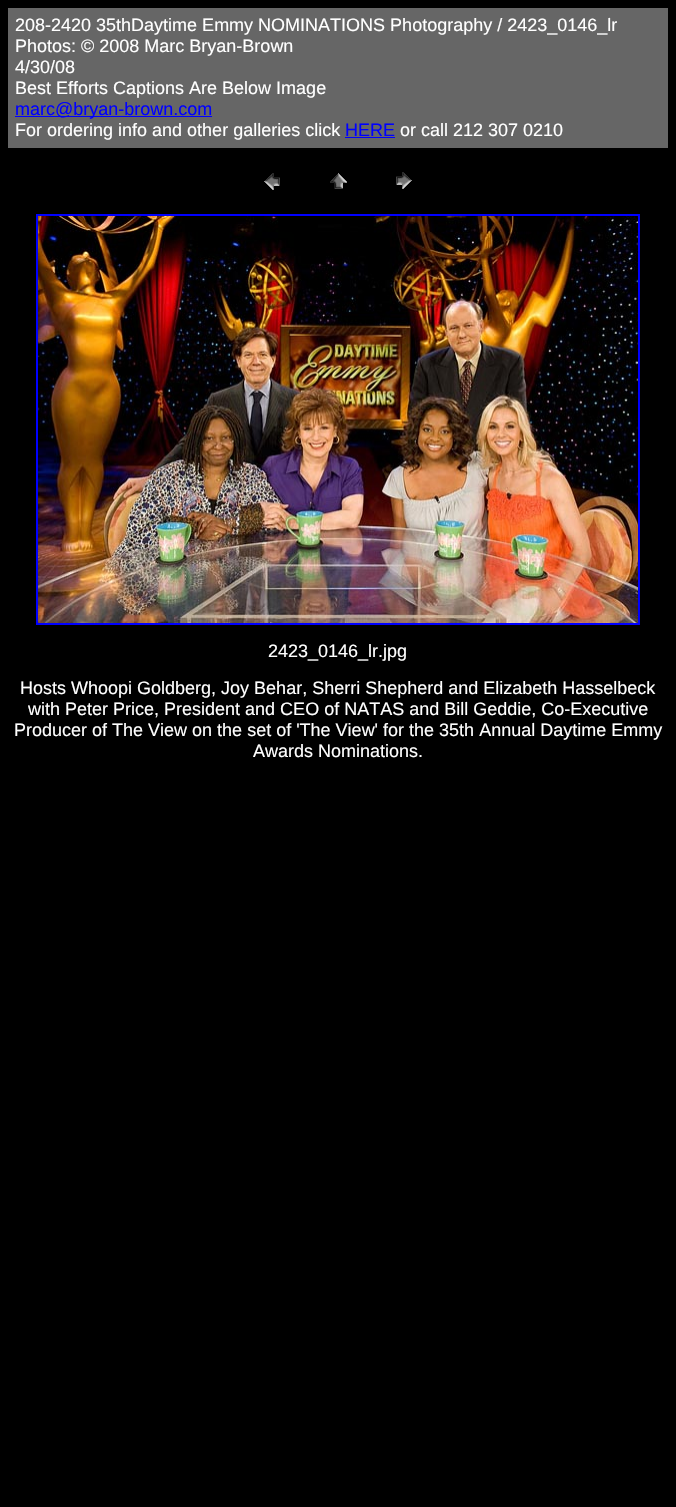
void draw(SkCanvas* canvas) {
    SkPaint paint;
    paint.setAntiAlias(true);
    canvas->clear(0xFF000000);
    paint.setColor(0xFF666666);
    canvas->drawRect(SkRect::MakeXYWH(8, 8, 660, 140), paint);
    SkFont font1(fontMgr->matchFamilyStyle("Liberation Sans", SkFontStyle::Normal()), 18);
    font1.setSubpixel(true);
    paint.setColor(0xFFFFFFFF);
    canvas->drawString("208-2420 35thDaytime Emmy NOMINATIONS Photography / 2423_0146_lr", 15, 31, font1, paint);
    canvas->drawString("Photos: © 2008 Marc Bryan-Brown", 15, 52, font1, paint);
    canvas->drawString("4/30/08", 15, 73, font1, paint);
    canvas->drawString("Best Efforts Captions Are Below Image", 15, 94, font1, paint);
    paint.setColor(0xFF0000FF);
    canvas->drawRect(SkRect::MakeXYWH(15, 116, 197, 1), paint);
    canvas->drawString("marc@bryan-brown.com", 15, 115, font1, paint);
    paint.setColor(0xFFFFFFFF);
    canvas->drawString("For ordering info and other galleries click", 15, 136, font1, paint);
    paint.setColor(0xFF0000FF);
    canvas->drawString("HERE", 345, 136, font1, paint);
    canvas->drawRect(SkRect::MakeXYWH(345, 137, 50, 1), paint);
    paint.setColor(0xFFFFFFFF);
    canvas->drawString("or call 212 307 0210", 400, 136, font1, paint);
    canvas->drawImageRect(SkImages::DeferredFromEncodedData(SkData::MakeFromFileName("img1.png")), SkRect::MakeXYWH(264, 173, 16, 17), SkSamplingOptions());
    canvas->drawImageRect(SkImages::DeferredFromEncodedData(SkData::MakeFromFileName("img2.png")), SkRect::MakeXYWH(330, 173, 17, 16), SkSamplingOptions());
    canvas->drawImageRect(SkImages::DeferredFromEncodedData(SkData::MakeFromFileName("img3.png")), SkRect::MakeXYWH(396, 172, 16, 17), SkSamplingOptions());
    paint.setStyle(SkPaint::kStroke_Style);
    paint.setStrokeWidth(2);
    paint.setColor(0xFF0000FF);
    canvas->drawRect(SkRect::MakeXYWH(37, 215, 602, 409), paint);
    canvas->drawImageRect(SkImages::DeferredFromEncodedData(SkData::MakeFromFileName("img4.png")), SkRect::MakeXYWH(38, 216, 600, 407), SkSamplingOptions());
    paint.setStyle(SkPaint::kFill_Style);
    paint.setColor(0xFFFFFFFF);
    canvas->drawString("2423_0146_lr.jpg", 268, 657, font1, paint);
    canvas->drawString("Hosts Whoopi Goldberg, Joy Behar, Sherri Shepherd and Elizabeth Hasselbeck", 20, 694, font1, paint);
    canvas->drawString("with Peter Price, President and CEO of NATAS and Bill Geddie, Co-Executive", 28, 715, font1, paint);
    canvas->drawString("Producer of The View on the set of 'The View' for the 35th Annual Daytime Emmy", 14, 736, font1, paint);
    canvas->drawString("Awards Nominations.", 253, 757, font1, paint);
}
